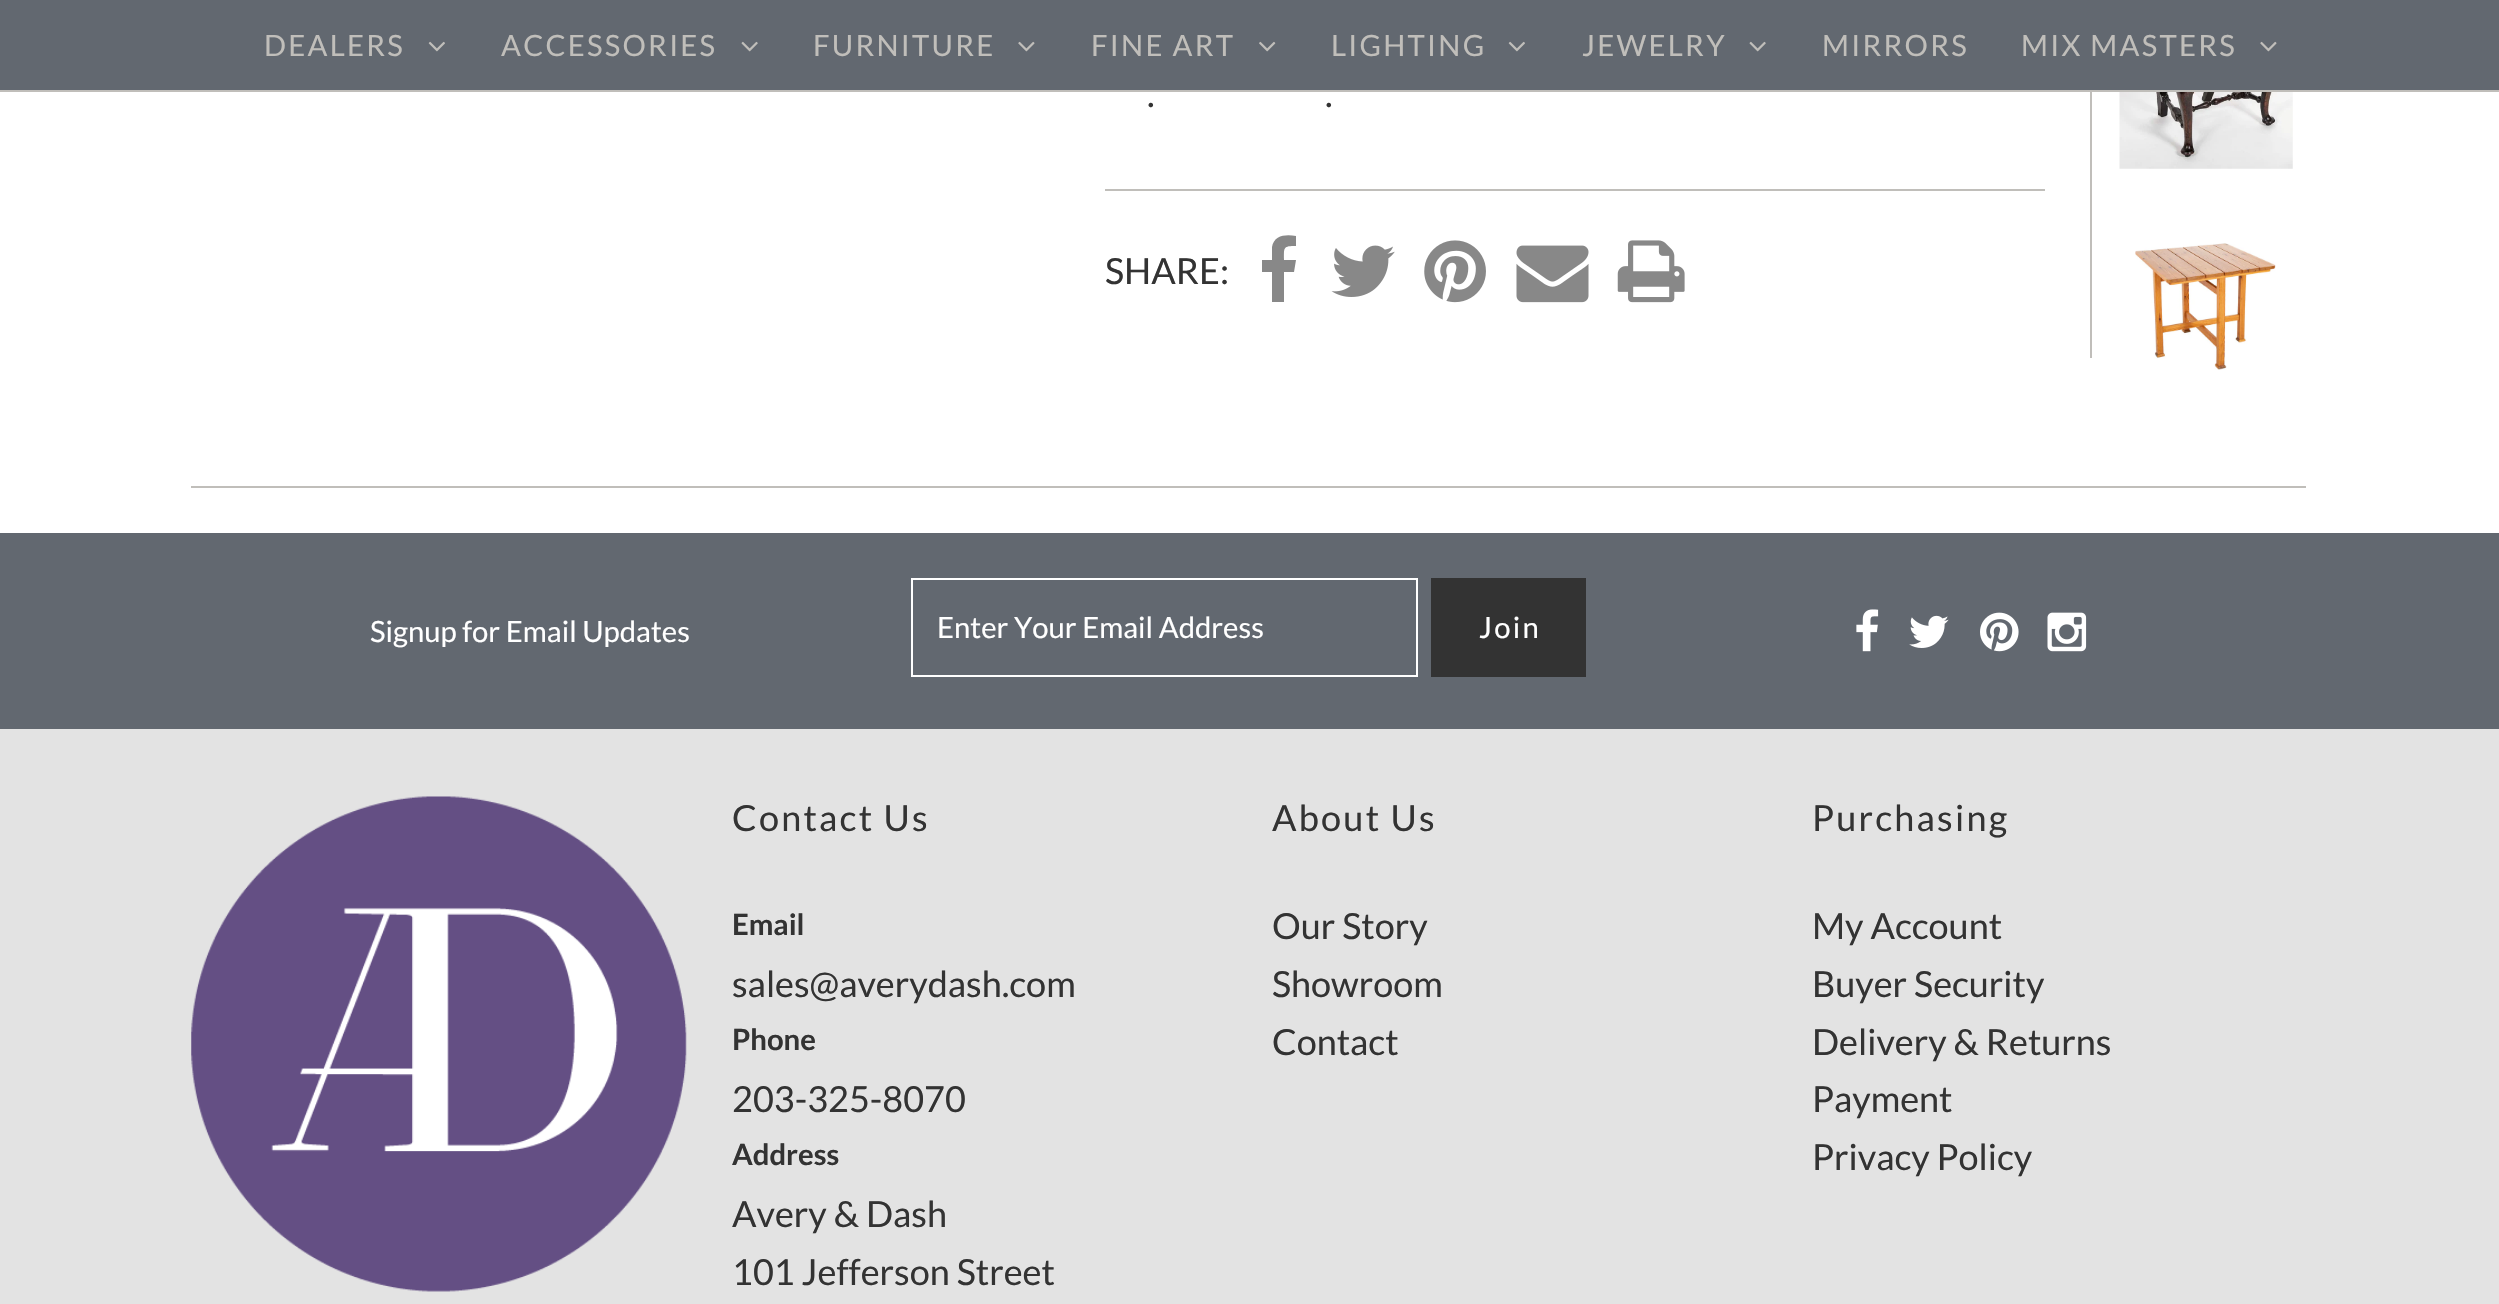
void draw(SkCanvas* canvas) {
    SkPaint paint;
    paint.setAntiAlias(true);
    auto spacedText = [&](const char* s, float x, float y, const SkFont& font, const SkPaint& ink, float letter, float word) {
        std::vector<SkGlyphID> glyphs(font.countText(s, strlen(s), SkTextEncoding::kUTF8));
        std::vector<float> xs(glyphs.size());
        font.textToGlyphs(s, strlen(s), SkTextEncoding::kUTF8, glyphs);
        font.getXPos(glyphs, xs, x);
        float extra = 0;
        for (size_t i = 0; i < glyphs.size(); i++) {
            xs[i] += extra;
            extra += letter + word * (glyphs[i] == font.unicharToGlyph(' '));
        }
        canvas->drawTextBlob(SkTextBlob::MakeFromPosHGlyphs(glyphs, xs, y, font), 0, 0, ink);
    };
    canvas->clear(0xFFFFFFFF);
    paint.setColor(0xFF626870);
    canvas->drawRect(SkRect::MakeXYWH(0, 0, 2499, 90), paint);
    paint.setColor(0xFFC0BEBA);
    canvas->drawRect(SkRect::MakeXYWH(0, 90, 2499, 2), paint);
    SkFont font1(fontMgr->matchFamilyStyle("Lato", SkFontStyle::Normal()), 29.25f);
    font1.setSubpixel(true);
    spacedText("DEALERS", 264, 56, font1, paint, 2.25f, 0);
    canvas->drawImageRect(SkImages::DeferredFromEncodedData(SkData::MakeFromFileName("img1.png")), SkRect::MakeXYWH(428, 41, 17, 11), SkSamplingOptions());
    spacedText("ACCESSORIES", 501, 56, font1, paint, 2.25f, 0);
    canvas->drawImageRect(SkImages::DeferredFromEncodedData(SkData::MakeFromFileName("img2.png")), SkRect::MakeXYWH(741, 41, 17, 11), SkSamplingOptions());
    spacedText("FURNITURE", 813, 56, font1, paint, 2.25f, 0);
    canvas->drawImageRect(SkImages::DeferredFromEncodedData(SkData::MakeFromFileName("img3.png")), SkRect::MakeXYWH(1018, 41, 17, 11), SkSamplingOptions());
    spacedText("FINE ART", 1091, 56, font1, paint, 2.25f, 0);
    canvas->drawImageRect(SkImages::DeferredFromEncodedData(SkData::MakeFromFileName("img4.png")), SkRect::MakeXYWH(1259, 41, 17, 11), SkSamplingOptions());
    spacedText("LIGHTING", 1331, 56, font1, paint, 2.25f, 0);
    canvas->drawImageRect(SkImages::DeferredFromEncodedData(SkData::MakeFromFileName("img1.png")), SkRect::MakeXYWH(1508, 41, 17, 11), SkSamplingOptions());
    spacedText("JEWELRY", 1582, 56, font1, paint, 2.25f, 0);
    canvas->drawImageRect(SkImages::DeferredFromEncodedData(SkData::MakeFromFileName("img2.png")), SkRect::MakeXYWH(1749, 41, 17, 11), SkSamplingOptions());
    spacedText("MIRRORS", 1822, 56, font1, paint, 2.25f, 0);
    spacedText("MIX MASTERS", 2021, 56, font1, paint, 2.25f, 0);
    canvas->drawImageRect(SkImages::DeferredFromEncodedData(SkData::MakeFromFileName("img3.png")), SkRect::MakeXYWH(2260, 41, 17, 11), SkSamplingOptions());
    canvas->drawRect(SkRect::MakeXYWH(2090, 92, 2, 266), paint);
    SkFont font2(fontMgr->matchFamilyStyle("Lato", SkFontStyle::Normal()), 36);
    font2.setSubpixel(true);
    paint.setColor(0xFF333333);
    canvas->drawString(".", 1147, 107, font2, paint);
    canvas->drawString(".", 1325, 107, font2, paint);
    paint.setColor(0xFFC0BEBA);
    canvas->drawRect(SkRect::MakeXYWH(1105, 189, 940, 2), paint);
    paint.setColor(0xFF333333);
    canvas->drawString("SHARE:", 1105, 284, font2, paint);
    paint.setColor(0xFF888888);
    canvas->drawPath(SkPathBuilder().moveTo(1296, 236).lineTo(1296, 246).cubicTo(1283, 246, 1284, 247, 1284, 260).lineTo(1296, 260).lineTo(1294, 272).lineTo(1284, 272).lineTo(1284, 302).lineTo(1272, 302).lineTo(1272, 272).lineTo(1262, 272).lineTo(1262, 260).lineTo(1272, 260).lineTo(1272, 247).cubicTo(1274, 235, 1286, 234, 1296, 236).close().detach(), paint);
    canvas->drawImageRect(SkImages::DeferredFromEncodedData(SkData::MakeFromFileName("img5.png")), SkRect::MakeXYWH(1331, 245, 64, 52), SkSamplingOptions());
    canvas->drawImageRect(SkImages::DeferredFromEncodedData(SkData::MakeFromFileName("img6.png")), SkRect::MakeXYWH(1424, 240, 62, 63), SkSamplingOptions());
    canvas->drawImageRect(SkImages::DeferredFromEncodedData(SkData::MakeFromFileName("img7.png")), SkRect::MakeXYWH(1516, 245, 73, 58), SkSamplingOptions());
    canvas->drawImageRect(SkImages::DeferredFromEncodedData(SkData::MakeFromFileName("img8.png")), SkRect::MakeXYWH(1617, 240, 68, 63), SkSamplingOptions());
    canvas->drawImageRect(SkImages::DeferredFromEncodedData(SkData::MakeFromFileName("img9.png")), SkRect::MakeXYWH(2119, 92, 174, 77), SkSamplingOptions());
    canvas->drawImageRect(SkImages::DeferredFromEncodedData(SkData::MakeFromFileName("img10.png")), SkRect::MakeXYWH(2135, 243, 141, 127), SkSamplingOptions());
    paint.setColor(0xFFC0BEBA);
    canvas->drawRect(SkRect::MakeXYWH(191, 486, 2115, 2), paint);
    paint.setColor(0xFF626870);
    canvas->drawRect(SkRect::MakeXYWH(0, 533, 2499, 196), paint);
    paint.setColor(0xFFFFFFFF);
    canvas->drawString("Signup for Email Updates", 370, 642, font1, paint);
    paint.setStyle(SkPaint::kStroke_Style);
    paint.setStrokeWidth(2);
    canvas->drawRect(SkRect::MakeXYWH(912, 579, 505, 97), paint);
    paint.setStyle(SkPaint::kFill_Style);
    canvas->drawString("Enter Your Email Address", 937, 638, font1, paint);
    paint.setColor(0xFF333333);
    canvas->drawRect(SkRect::MakeXYWH(1431, 578, 155, 99), paint);
    paint.setColor(0xFFFFFFFF);
    spacedText("Join", 1479, 638, font1, paint, 2.25f, 0);
    canvas->drawImageRect(SkImages::DeferredFromEncodedData(SkData::MakeFromFileName("img11.png")), SkRect::MakeXYWH(1856, 609, 23, 43), SkSamplingOptions());
    canvas->drawImageRect(SkImages::DeferredFromEncodedData(SkData::MakeFromFileName("img12.png")), SkRect::MakeXYWH(1909, 615, 40, 33), SkSamplingOptions());
    canvas->drawImageRect(SkImages::DeferredFromEncodedData(SkData::MakeFromFileName("img13.png")), SkRect::MakeXYWH(1980, 612, 39, 40), SkSamplingOptions());
    canvas->drawImageRect(SkImages::DeferredFromEncodedData(SkData::MakeFromFileName("img14.png")), SkRect::MakeXYWH(2047, 612, 40, 40), SkSamplingOptions());
    paint.setColor(0xFFE3E3E3);
    canvas->drawRect(SkRect::MakeXYWH(0, 729, 2499, 575), paint);
    canvas->drawImageRect(SkImages::DeferredFromEncodedData(SkData::MakeFromFileName("img15.png")), SkRect::MakeXYWH(191, 796, 496, 496), SkSamplingOptions());
    paint.setColor(0xFF333333);
    spacedText("Contact Us", 732, 831, font2, paint, 2.25f, 0);
    SkFont font3(fontMgr->matchFamilyStyle("Lato", SkFontStyle::Bold()), 29.25f);
    font3.setSubpixel(true);
    canvas->drawString("Email", 732, 935, font3, paint);
    canvas->drawString("sales@averydash.com", 732, 997, font2, paint);
    canvas->drawString("Phone", 732, 1050, font3, paint);
    canvas->drawString("203-325-8070", 732, 1112, font2, paint);
    canvas->drawString("Address", 732, 1165, font3, paint);
    canvas->drawString("Avery & Dash", 732, 1227, font2, paint);
    canvas->drawString("101 Jefferson Street", 732, 1285, font2, paint);
    spacedText("About Us", 1272, 831, font2, paint, 2.25f, 0);
    canvas->drawString("Our Story", 1272, 939, font2, paint);
    canvas->drawString("Showroom", 1272, 997, font2, paint);
    canvas->drawString("Contact", 1272, 1055, font2, paint);
    spacedText("Purchasing", 1812, 831, font2, paint, 2.25f, 0);
    canvas->drawString("My Account", 1812, 939, font2, paint);
    canvas->drawString("Buyer Security", 1812, 997, font2, paint);
    canvas->drawString("Delivery & Returns", 1812, 1055, font2, paint);
    canvas->drawString("Payment", 1812, 1112, font2, paint);
    canvas->drawString("Privacy Policy", 1812, 1170, font2, paint);
}
